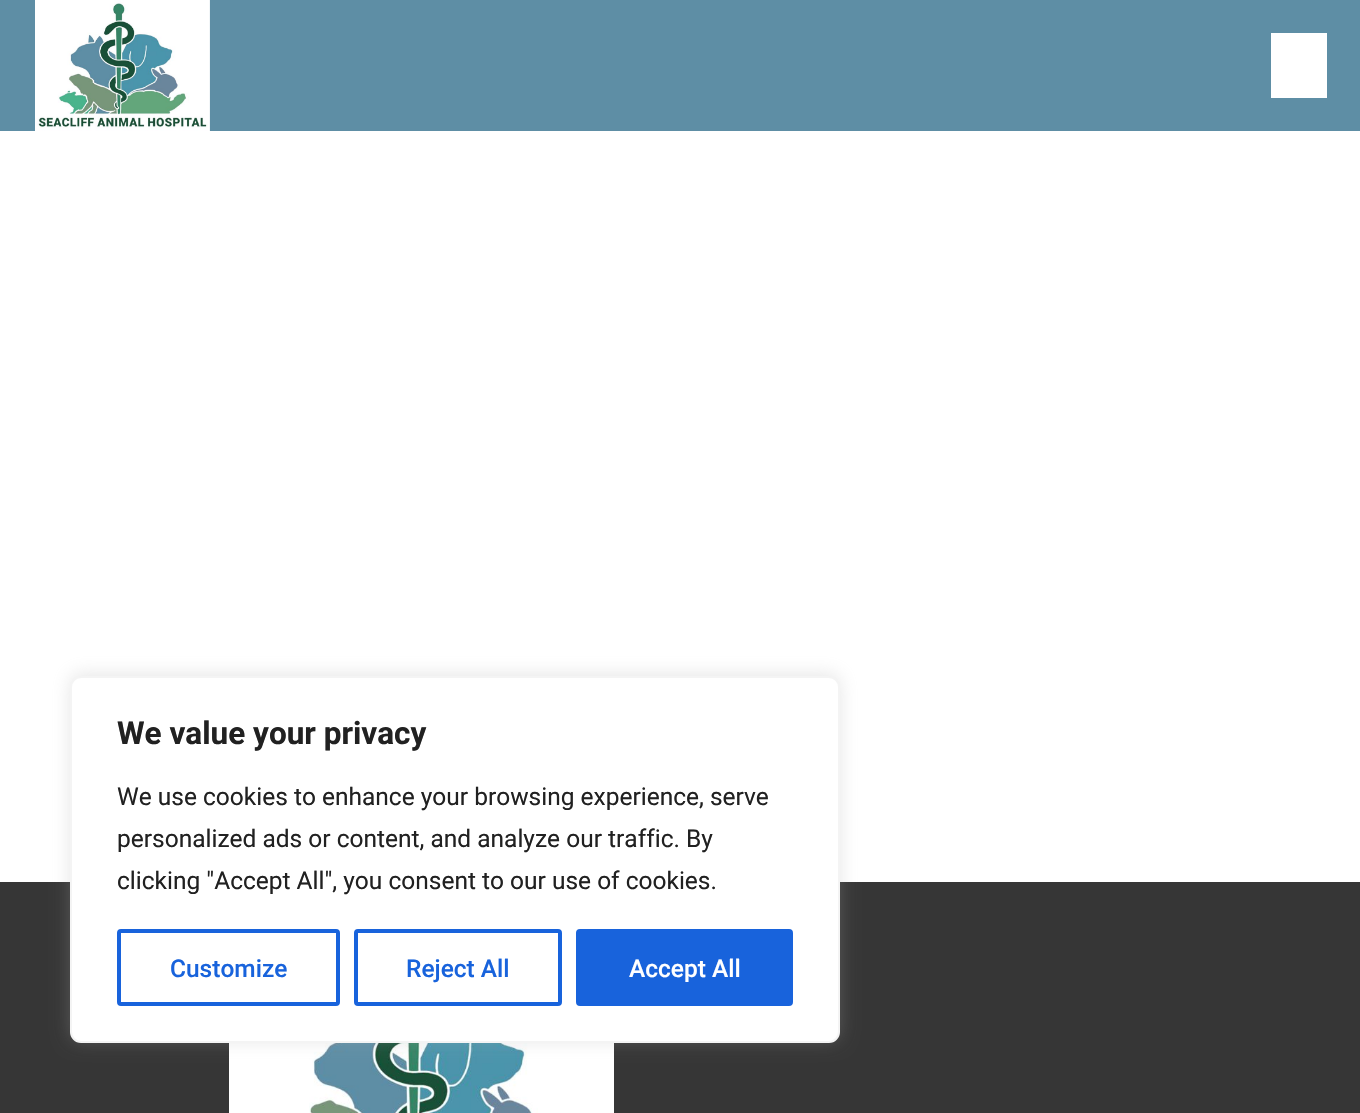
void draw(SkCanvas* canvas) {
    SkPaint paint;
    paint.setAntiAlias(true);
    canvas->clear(0xFFFFFFFF);
    paint.setColor(0xFF5E8EA5);
    canvas->drawRect(SkRect::MakeXYWH(0, 0, 1360, 131), paint);
    canvas->drawImageRect(SkImages::DeferredFromEncodedData(SkData::MakeFromFileName("img1.png")), SkRect::MakeXYWH(35, 0, 175, 131), SkSamplingOptions());
    paint.setColor(0xFFFFFFFF);
    canvas->drawRect(SkRect::MakeXYWH(1271, 33, 56, 65), paint);
    paint.setColor(0xFF363636);
    canvas->drawRect(SkRect::MakeXYWH(0, 882, 1360, 231), paint);
    paint.setColor(0xFFFFFFFF);
    canvas->drawRect(SkRect::MakeXYWH(229, 1043, 385, 70), paint);
    canvas->drawImageRect(SkImages::DeferredFromEncodedData(SkData::MakeFromFileName("img2.png")), SkRect::MakeXYWH(309, 1043, 229, 70), SkSamplingOptions());
    paint.setColor(0x4DACABAB);
    paint.setMaskFilter(SkMaskFilter::MakeBlur(kNormal_SkBlurStyle, 9));
    canvas->drawRoundRect(SkRect::MakeXYWH(70, 674, 770, 367), 11, 11, paint);
    paint.setMaskFilter(nullptr);
    paint.setColor(0xFFFFFFFF);
    canvas->drawRoundRect(SkRect::MakeXYWH(71, 677, 768, 365), 10, 10, paint);
    paint.setStyle(SkPaint::kStroke_Style);
    paint.setStrokeWidth(2);
    paint.setColor(0xFFF4F4F4);
    canvas->drawRoundRect(SkRect::MakeXYWH(71, 677, 768, 365), 10, 10, paint);
    SkFont font1(fontMgr->matchFamilyStyle("Roboto", SkFontStyle::Bold()), 31.5f);
    font1.setSubpixel(true);
    paint.setStyle(SkPaint::kFill_Style);
    paint.setColor(0xFF212121);
    canvas->drawString("We value your privacy", 117, 744, font1, paint);
    SkFont font2(fontMgr->matchFamilyStyle("Roboto", SkFontStyle::Normal()), 24.5f);
    font2.setSubpixel(true);
    canvas->drawString("We use cookies to enhance your browsing experience, serve", 117, 805, font2, paint);
    canvas->drawString("personalized ads or content, and analyze our traffic. By", 117, 847, font2, paint);
    canvas->drawString("clicking \"Accept All\", you consent to our use of cookies.", 117, 889, font2, paint);
    paint.setStyle(SkPaint::kStroke_Style);
    paint.setStrokeWidth(4);
    paint.setColor(0xFF1863DC);
    canvas->drawRoundRect(SkRect::MakeXYWH(119, 931, 219, 73), 2, 2, paint);
    SkFont font3(fontMgr->matchFamilyStyle("Roboto", SkFontStyle(500, SkFontStyle::kNormal_Width, SkFontStyle::kUpright_Slant)), 24.5f);
    font3.setSubpixel(true);
    paint.setStyle(SkPaint::kFill_Style);
    canvas->drawString("Customize", 170, 977, font3, paint);
    paint.setStyle(SkPaint::kStroke_Style);
    canvas->drawRoundRect(SkRect::MakeXYWH(356, 931, 204, 73), 2, 2, paint);
    paint.setStyle(SkPaint::kFill_Style);
    canvas->drawString("Reject All", 406, 977, font3, paint);
    canvas->drawRoundRect(SkRect::MakeXYWH(578, 931, 213, 73), 2, 2, paint);
    paint.setStyle(SkPaint::kStroke_Style);
    canvas->drawRoundRect(SkRect::MakeXYWH(578, 931, 213, 73), 2, 2, paint);
    paint.setStyle(SkPaint::kFill_Style);
    paint.setColor(0xFFFFFFFF);
    canvas->drawString("Accept All", 629, 977, font3, paint);
}
